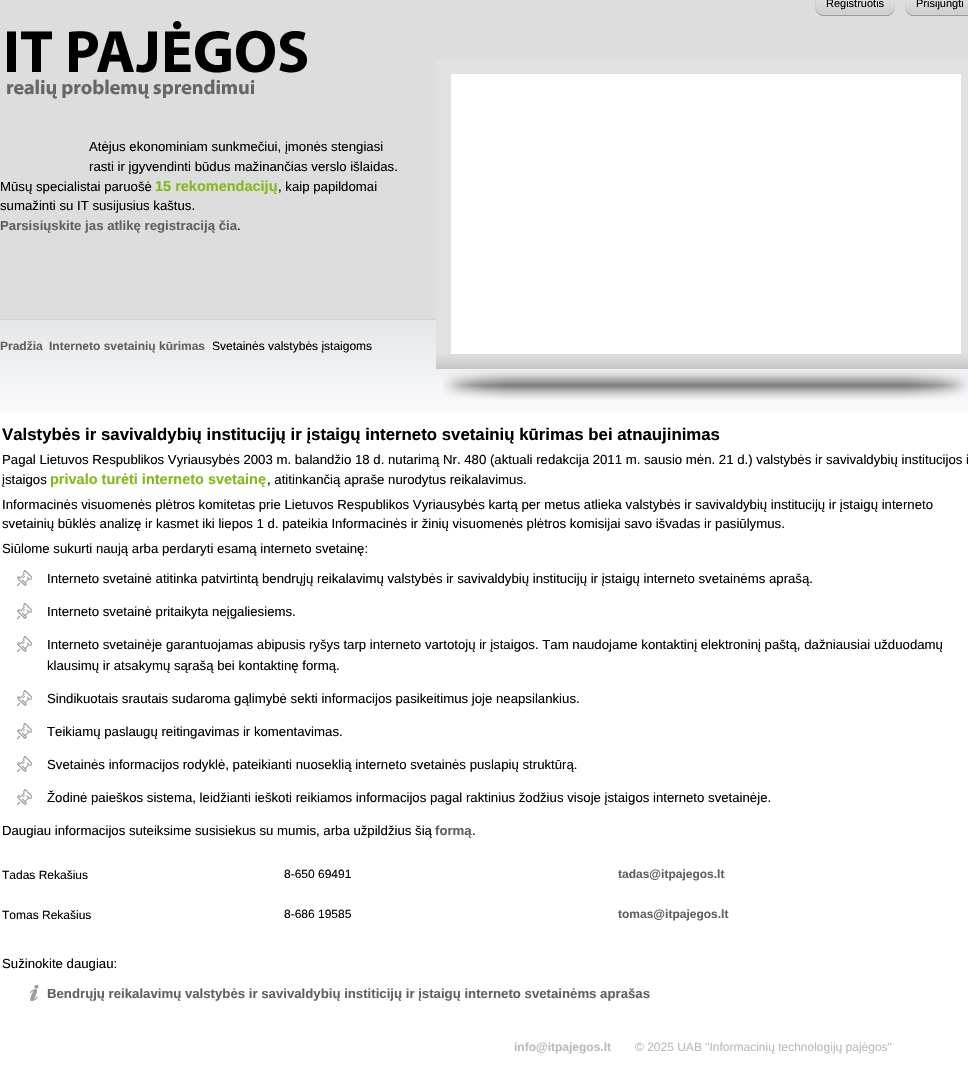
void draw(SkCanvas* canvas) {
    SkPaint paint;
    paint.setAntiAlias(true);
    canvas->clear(0xFFFFFFFF);
    paint.setColor(0xFFDDDDDD);
    canvas->drawRect(SkRect::MakeXYWH(0, 0, 968, 319), paint);
    canvas->drawImageRect(SkImages::DeferredFromEncodedData(SkData::MakeFromFileName("img1.png")), SkRect::MakeXYWH(815, 0, 11, 16), SkSamplingOptions());
    canvas->drawImageRect(SkImages::DeferredFromEncodedData(SkData::MakeFromFileName("img2.png")), SkRect::MakeXYWH(826, 4, 58, 12), SkSamplingOptions());
    SkFont font1(fontMgr->matchFamilyStyle("Liberation Sans", SkFontStyle::Normal()), 11);
    font1.setSubpixel(true);
    paint.setColor(0xFF000000);
    canvas->drawString("Registruotis", 826, 7, font1, paint);
    canvas->drawImageRect(SkImages::DeferredFromEncodedData(SkData::MakeFromFileName("img3.png")), SkRect::MakeXYWH(884, 0, 11, 16), SkSamplingOptions());
    canvas->drawImageRect(SkImages::DeferredFromEncodedData(SkData::MakeFromFileName("img1.png")), SkRect::MakeXYWH(905, 0, 11, 16), SkSamplingOptions());
    canvas->drawImageRect(SkImages::DeferredFromEncodedData(SkData::MakeFromFileName("img4.png")), SkRect::MakeXYWH(916, 4, 48, 12), SkSamplingOptions());
    canvas->drawString("Prisijungti", 916, 7, font1, paint);
    canvas->drawImageRect(SkImages::DeferredFromEncodedData(SkData::MakeFromFileName("img5.png")), SkRect::MakeXYWH(964, 4, 4, 12), SkSamplingOptions());
    canvas->drawImageRect(SkImages::DeferredFromEncodedData(SkData::MakeFromFileName("img6.png")), SkRect::MakeXYWH(7, 21, 300, 78), SkSamplingOptions());
    SkFont font2(fontMgr->matchFamilyStyle("Liberation Sans", SkFontStyle::Normal()), 13.2f);
    font2.setSubpixel(true);
    canvas->drawString("Atėjus ekonominiam sunkmečiui, įmonės stengiasi", 89, 151, font2, paint);
    canvas->drawString("rasti ir įgyvendinti būdus mažinančias verslo išlaidas.", 89, 171, font2, paint);
    canvas->drawString("Mūsų specialistai paruošė", 0, 191, font2, paint);
    SkFont font3(fontMgr->matchFamilyStyle("Liberation Sans", SkFontStyle::Bold()), 14.5f);
    font3.setSubpixel(true);
    paint.setColor(0xFF83B91A);
    canvas->drawString("15 rekomendacijų", 155, 191, font3, paint);
    paint.setColor(0xFF000000);
    canvas->drawString(", kaip papildomai", 278, 191, font2, paint);
    canvas->drawString("sumažinti su IT susijusius kaštus.", 0, 210, font2, paint);
    SkFont font4(fontMgr->matchFamilyStyle("Liberation Sans", SkFontStyle::Bold()), 13.2f);
    font4.setSubpixel(true);
    paint.setColor(0xFF606060);
    canvas->drawString("Parsisiųskite jas atlikę registraciją čia", 0, 230, font4, paint);
    paint.setColor(0xFF000000);
    canvas->drawString(".", 237, 230, font2, paint);
    canvas->drawImageRect(SkImages::DeferredFromEncodedData(SkData::MakeFromFileName("img7.png")), SkRect::MakeXYWH(0, 319, 968, 93), SkSamplingOptions());
    SkFont font5(fontMgr->matchFamilyStyle("Liberation Sans", SkFontStyle::Bold()), 12);
    font5.setSubpixel(true);
    paint.setColor(0xFF606060);
    canvas->drawString("Pradžia", 0, 350, font5, paint);
    canvas->drawString("Interneto svetainių kūrimas", 49, 350, font5, paint);
    SkFont font6(fontMgr->matchFamilyStyle("Liberation Sans", SkFontStyle::Normal()), 12);
    font6.setSubpixel(true);
    paint.setColor(0xFF000000);
    canvas->drawString("Svetainės valstybės įstaigoms", 212, 350, font6, paint);
    paint.setColor(0xFFE2E1E1);
    canvas->drawRect(SkRect::MakeXYWH(436, 59, 532, 295), paint);
    paint.setColor(0xFFFFFFFF);
    canvas->drawRect(SkRect::MakeXYWH(451, 74, 510, 280), paint);
    canvas->drawImageRect(SkImages::DeferredFromEncodedData(SkData::MakeFromFileName("img8.png")), SkRect::MakeXYWH(436, 354, 532, 15), SkSamplingOptions());
    canvas->drawImageRect(SkImages::DeferredFromEncodedData(SkData::MakeFromFileName("img9.png")), SkRect::MakeXYWH(443, 370, 65, 30), SkSamplingOptions());
    canvas->drawImageRect(SkImages::DeferredFromEncodedData(SkData::MakeFromFileName("img10.png")), SkRect::MakeXYWH(508, 370, 396, 30), SkSamplingOptions());
    canvas->drawImageRect(SkImages::DeferredFromEncodedData(SkData::MakeFromFileName("img11.png")), SkRect::MakeXYWH(904, 370, 64, 30), SkSamplingOptions());
    SkFont font7(fontMgr->matchFamilyStyle("Liberation Sans", SkFontStyle::Bold()), 16.8f);
    font7.setSubpixel(true);
    paint.setColor(0xFF000000);
    canvas->drawString("Valstybės ir savivaldybių institucijų ir įstaigų interneto svetainių kūrimas bei atnaujinimas", 2, 440, font7, paint);
    canvas->drawString("Pagal Lietuvos Respublikos Vyriausybės 2003 m. balandžio 18 d. nutarimą Nr. 480 (aktuali redakcija 2011 m. sausio mėn. 21 d.) valstybės ir savivaldybių institucijos i", 2, 464, font2, paint);
    canvas->drawString("įstaigos", 2, 484, font2, paint);
    paint.setColor(0xFF83B91A);
    canvas->drawString("privalo turėti interneto svetainę", 50, 484, font3, paint);
    paint.setColor(0xFF000000);
    canvas->drawString(", atitinkančią apraše nurodytus reikalavimus.", 267, 484, font2, paint);
    canvas->drawString("Informacinės visuomenės plėtros komitetas prie Lietuvos Respublikos Vyriausybės kartą per metus atlieka valstybės ir savivaldybių institucijų ir įstaigų interneto", 2, 509, font2, paint);
    canvas->drawString("svetainių būklės analizę ir kasmet iki liepos 1 d. pateikia Informacinės ir žinių visuomenės plėtros komisijai savo išvadas ir pasiūlymus.", 2, 528, font2, paint);
    canvas->drawString("Siūlome sukurti naują arba perdaryti esamą interneto svetainę:", 2, 553, font2, paint);
    canvas->drawImageRect(SkImages::DeferredFromEncodedData(SkData::MakeFromFileName("img12.png")), SkRect::MakeXYWH(17, 570, 15, 16), SkSamplingOptions());
    canvas->drawString("Interneto svetainė atitinka patvirtintą bendrųjų reikalavimų valstybės ir savivaldybių institucijų ir įstaigų interneto svetainėms aprašą.", 47, 583, font2, paint);
    canvas->drawImageRect(SkImages::DeferredFromEncodedData(SkData::MakeFromFileName("img12.png")), SkRect::MakeXYWH(17, 603, 15, 16), SkSamplingOptions());
    canvas->drawString("Interneto svetainė pritaikyta neįgaliesiems.", 47, 616, font2, paint);
    canvas->drawImageRect(SkImages::DeferredFromEncodedData(SkData::MakeFromFileName("img12.png")), SkRect::MakeXYWH(17, 636, 15, 16), SkSamplingOptions());
    canvas->drawString("Interneto svetainėje garantuojamas abipusis ryšys tarp interneto vartotojų ir įstaigos. Tam naudojame kontaktinį elektroninį paštą, dažniausiai užduodamų", 47, 649, font2, paint);
    canvas->drawString("klausimų ir atsakymų sąrašą bei kontaktinę formą.", 47, 670, font2, paint);
    canvas->drawImageRect(SkImages::DeferredFromEncodedData(SkData::MakeFromFileName("img12.png")), SkRect::MakeXYWH(17, 690, 15, 16), SkSamplingOptions());
    canvas->drawString("Sindikuotais srautais sudaroma gąlimybė sekti informacijos pasikeitimus joje neapsilankius.", 47, 703, font2, paint);
    canvas->drawImageRect(SkImages::DeferredFromEncodedData(SkData::MakeFromFileName("img12.png")), SkRect::MakeXYWH(17, 723, 15, 16), SkSamplingOptions());
    canvas->drawString("Teikiamų paslaugų reitingavimas ir komentavimas.", 47, 736, font2, paint);
    canvas->drawImageRect(SkImages::DeferredFromEncodedData(SkData::MakeFromFileName("img12.png")), SkRect::MakeXYWH(17, 756, 15, 16), SkSamplingOptions());
    canvas->drawString("Svetainės informacijos rodyklė, pateikianti nuoseklią interneto svetainės puslapių struktūrą.", 47, 769, font2, paint);
    canvas->drawImageRect(SkImages::DeferredFromEncodedData(SkData::MakeFromFileName("img12.png")), SkRect::MakeXYWH(17, 789, 15, 16), SkSamplingOptions());
    canvas->drawString("Žodinė paieškos sistema, leidžianti ieškoti reikiamos informacijos pagal raktinius žodžius visoje įstaigos interneto svetainėje.", 47, 802, font2, paint);
    canvas->drawString("Daugiau informacijos suteiksime susisiekus su mumis, arba užpildžius šią", 2, 835, font2, paint);
    paint.setColor(0xFF606060);
    canvas->drawString("formą", 435, 835, font4, paint);
    paint.setColor(0xFF000000);
    canvas->drawString(".", 472, 835, font2, paint);
    canvas->drawString("Tadas Rekašius", 2, 879, font6, paint);
    canvas->drawString("8-650 69491", 284, 878, font6, paint);
    paint.setColor(0xFF606060);
    canvas->drawString("tadas@itpajegos.lt", 618, 878, font5, paint);
    paint.setColor(0xFF000000);
    canvas->drawString("Tomas Rekašius", 2, 919, font6, paint);
    canvas->drawString("8-686 19585", 284, 918, font6, paint);
    paint.setColor(0xFF606060);
    canvas->drawString("tomas@itpajegos.lt", 618, 918, font5, paint);
    paint.setColor(0xFF000000);
    canvas->drawString("Sužinokite daugiau:", 2, 968, font2, paint);
    canvas->drawImageRect(SkImages::DeferredFromEncodedData(SkData::MakeFromFileName("img13.png")), SkRect::MakeXYWH(30, 985, 9, 16), SkSamplingOptions());
    paint.setColor(0xFF606060);
    canvas->drawString("Bendrųjų reikalavimų valstybės ir savivaldybių institicijų ir įstaigų interneto svetainėms aprašas", 47, 998, font4, paint);
    paint.setColor(0xFFBCBBBB);
    canvas->drawString("info@itpajegos.lt", 514, 1051, font5, paint);
    canvas->drawString("© 2025 UAB \"Informacinių technologijų pajėgos\"", 635, 1051, font6, paint);
}
